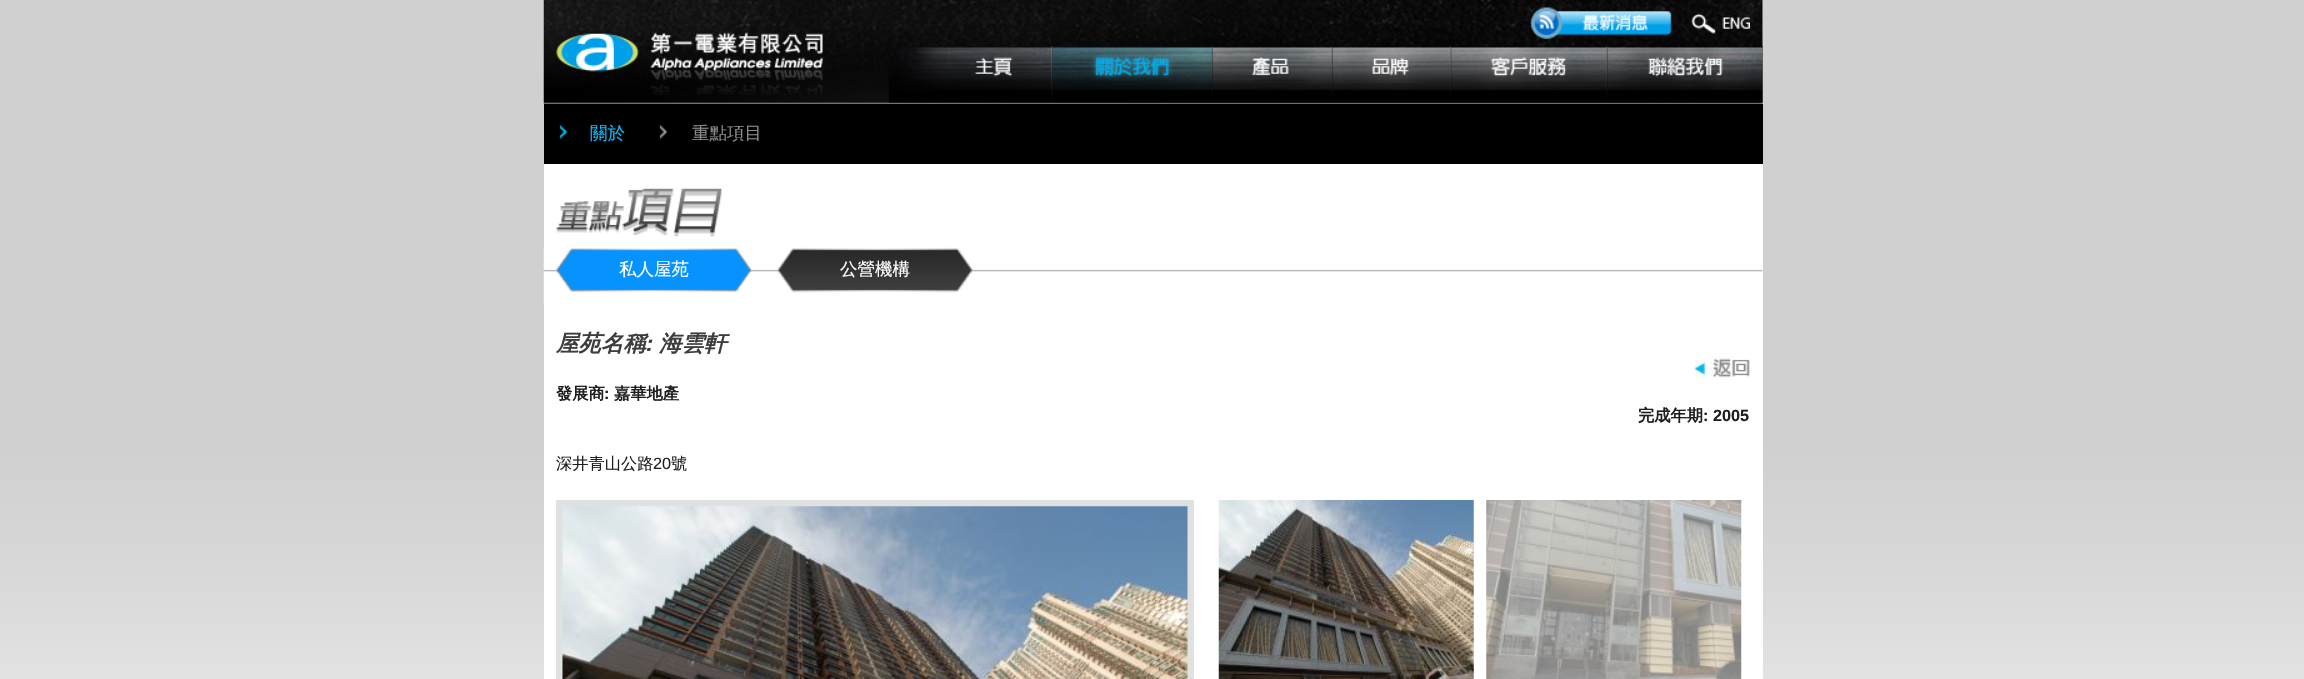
void draw(SkCanvas* canvas) {
    SkPaint paint;
    paint.setAntiAlias(true);
    canvas->clear(0xFFFFFFFF);
    canvas->drawImageRect(SkImages::DeferredFromEncodedData(SkData::MakeFromFileName("img1.png")), SkRect::MakeXYWH(0, 0, 2304, 679), SkSamplingOptions());
    canvas->drawImageRect(SkImages::DeferredFromEncodedData(SkData::MakeFromFileName("img2.png")), SkRect::MakeXYWH(543, 0, 1220, 104), SkSamplingOptions());
    canvas->drawImageRect(SkImages::DeferredFromEncodedData(SkData::MakeFromFileName("img3.png")), SkRect::MakeXYWH(1530, 7, 142, 32), SkSamplingOptions());
    canvas->drawImageRect(SkImages::DeferredFromEncodedData(SkData::MakeFromFileName("img4.png")), SkRect::MakeXYWH(1691, 13, 25, 21), SkSamplingOptions());
    canvas->drawImageRect(SkImages::DeferredFromEncodedData(SkData::MakeFromFileName("img5.png")), SkRect::MakeXYWH(1722, 17, 28, 12), SkSamplingOptions());
    canvas->drawImageRect(SkImages::DeferredFromEncodedData(SkData::MakeFromFileName("img6.png")), SkRect::MakeXYWH(556, 32, 268, 63), SkSamplingOptions());
    canvas->drawImageRect(SkImages::DeferredFromEncodedData(SkData::MakeFromFileName("img7.png")), SkRect::MakeXYWH(888, 46, 165, 57), SkSamplingOptions());
    canvas->drawImageRect(SkImages::DeferredFromEncodedData(SkData::MakeFromFileName("img8.png")), SkRect::MakeXYWH(1052, 46, 161, 57), SkSamplingOptions());
    canvas->drawImageRect(SkImages::DeferredFromEncodedData(SkData::MakeFromFileName("img9.png")), SkRect::MakeXYWH(1212, 46, 121, 57), SkSamplingOptions());
    canvas->drawImageRect(SkImages::DeferredFromEncodedData(SkData::MakeFromFileName("img10.png")), SkRect::MakeXYWH(1332, 46, 120, 57), SkSamplingOptions());
    canvas->drawImageRect(SkImages::DeferredFromEncodedData(SkData::MakeFromFileName("img11.png")), SkRect::MakeXYWH(1451, 46, 157, 57), SkSamplingOptions());
    canvas->drawImageRect(SkImages::DeferredFromEncodedData(SkData::MakeFromFileName("img12.png")), SkRect::MakeXYWH(1607, 46, 156, 57), SkSamplingOptions());
    paint.setColor(0xFFFFFFFF);
    canvas->drawRect(SkRect::MakeXYWH(544, 164, 1219, 515), paint);
    paint.setColor(0xFF000000);
    canvas->drawRect(SkRect::MakeXYWH(544, 104, 1219, 60), paint);
    canvas->drawImageRect(SkImages::DeferredFromEncodedData(SkData::MakeFromFileName("img13.png")), SkRect::MakeXYWH(558, 125, 10, 14), SkSamplingOptions());
    SkFont font1(fontMgr->matchFamilyStyle("WenQuanYi Zen Hei", SkFontStyle(500, SkFontStyle::kNormal_Width, SkFontStyle::kUpright_Slant)), 17.5f);
    font1.setSubpixel(true);
    paint.setColor(0xFF09BFFE);
    canvas->drawString("關於", 590, 139, font1, paint);
    canvas->drawImageRect(SkImages::DeferredFromEncodedData(SkData::MakeFromFileName("img14.png")), SkRect::MakeXYWH(659, 125, 9, 14), SkSamplingOptions());
    paint.setColor(0xFF8E8E8E);
    canvas->drawString("重點項目", 692, 139, font1, paint);
    canvas->drawImageRect(SkImages::DeferredFromEncodedData(SkData::MakeFromFileName("img15.png")), SkRect::MakeXYWH(556, 188, 167, 49), SkSamplingOptions());
    canvas->drawImageRect(SkImages::DeferredFromEncodedData(SkData::MakeFromFileName("img16.png")), SkRect::MakeXYWH(543, 247, 1220, 57), SkSamplingOptions());
    canvas->drawImageRect(SkImages::DeferredFromEncodedData(SkData::MakeFromFileName("img17.png")), SkRect::MakeXYWH(556, 248, 196, 45), SkSamplingOptions());
    paint.setColor(0xFFFFFFFF);
    canvas->drawString("私人屋苑", 619, 275, font1, paint);
    canvas->drawImageRect(SkImages::DeferredFromEncodedData(SkData::MakeFromFileName("img18.png")), SkRect::MakeXYWH(777, 247, 196, 46), SkSamplingOptions());
    canvas->drawString("公營機構", 840, 275, font1, paint);
    SkFont font2(fontMgr->matchFamilyStyle("WenQuanYi Zen Hei", SkFontStyle::BoldItalic()), 22.5f);
    font2.setSubpixel(true);
    paint.setColor(0xFF3D3D3D);
    canvas->drawString("屋苑名稱", 556, 351, font2, paint);
    SkFont font3(fontMgr->matchFamilyStyle("Liberation Sans", SkFontStyle::BoldItalic()), 22.5f);
    font3.setSubpixel(true);
    canvas->drawString(":", 646, 351, font3, paint);
    canvas->drawString("海雲軒", 659, 351, font2, paint);
    canvas->drawImageRect(SkImages::DeferredFromEncodedData(SkData::MakeFromFileName("img19.png")), SkRect::MakeXYWH(1694, 358, 56, 20), SkSamplingOptions());
    SkFont font4(fontMgr->matchFamilyStyle("WenQuanYi Zen Hei", SkFontStyle::Bold()), 16.25f);
    font4.setSubpixel(true);
    paint.setColor(0xFF1E1E1E);
    canvas->drawString("發展商", 556, 399, font4, paint);
    SkFont font5(fontMgr->matchFamilyStyle("Liberation Sans", SkFontStyle::Bold()), 16.25f);
    font5.setSubpixel(true);
    canvas->drawString(":", 604, 399, font5, paint);
    canvas->drawString("嘉華地產", 614, 399, font4, paint);
    canvas->drawString("完成年期", 1638, 421, font4, paint);
    canvas->drawString(": 2005", 1703, 421, font5, paint);
    SkFont font6(fontMgr->matchFamilyStyle("WenQuanYi Zen Hei", SkFontStyle(500, SkFontStyle::kNormal_Width, SkFontStyle::kUpright_Slant)), 16.25f);
    font6.setSubpixel(true);
    canvas->drawString("深井青山公路", 556, 469, font6, paint);
    SkFont font7(fontMgr->matchFamilyStyle("Liberation Sans", SkFontStyle::Normal()), 16.25f);
    font7.setSubpixel(true);
    canvas->drawString("20", 653, 469, font7, paint);
    canvas->drawString("號", 671, 469, font6, paint);
    paint.setColor(0xFFDFE2E1);
    canvas->drawRect(SkRect::MakeXYWH(556, 500, 638, 179), paint);
    canvas->drawImageRect(SkImages::DeferredFromEncodedData(SkData::MakeFromFileName("img20.png")), SkRect::MakeXYWH(562, 506, 626, 173), SkSamplingOptions());
    canvas->drawImageRect(SkImages::DeferredFromEncodedData(SkData::MakeFromFileName("img21.png")), SkRect::MakeXYWH(1218, 500, 256, 179), SkSamplingOptions());
    canvas->drawImageRect(SkImages::DeferredFromEncodedData(SkData::MakeFromFileName("img22.png")), SkRect::MakeXYWH(1486, 500, 256, 179), SkSamplingOptions());
}
